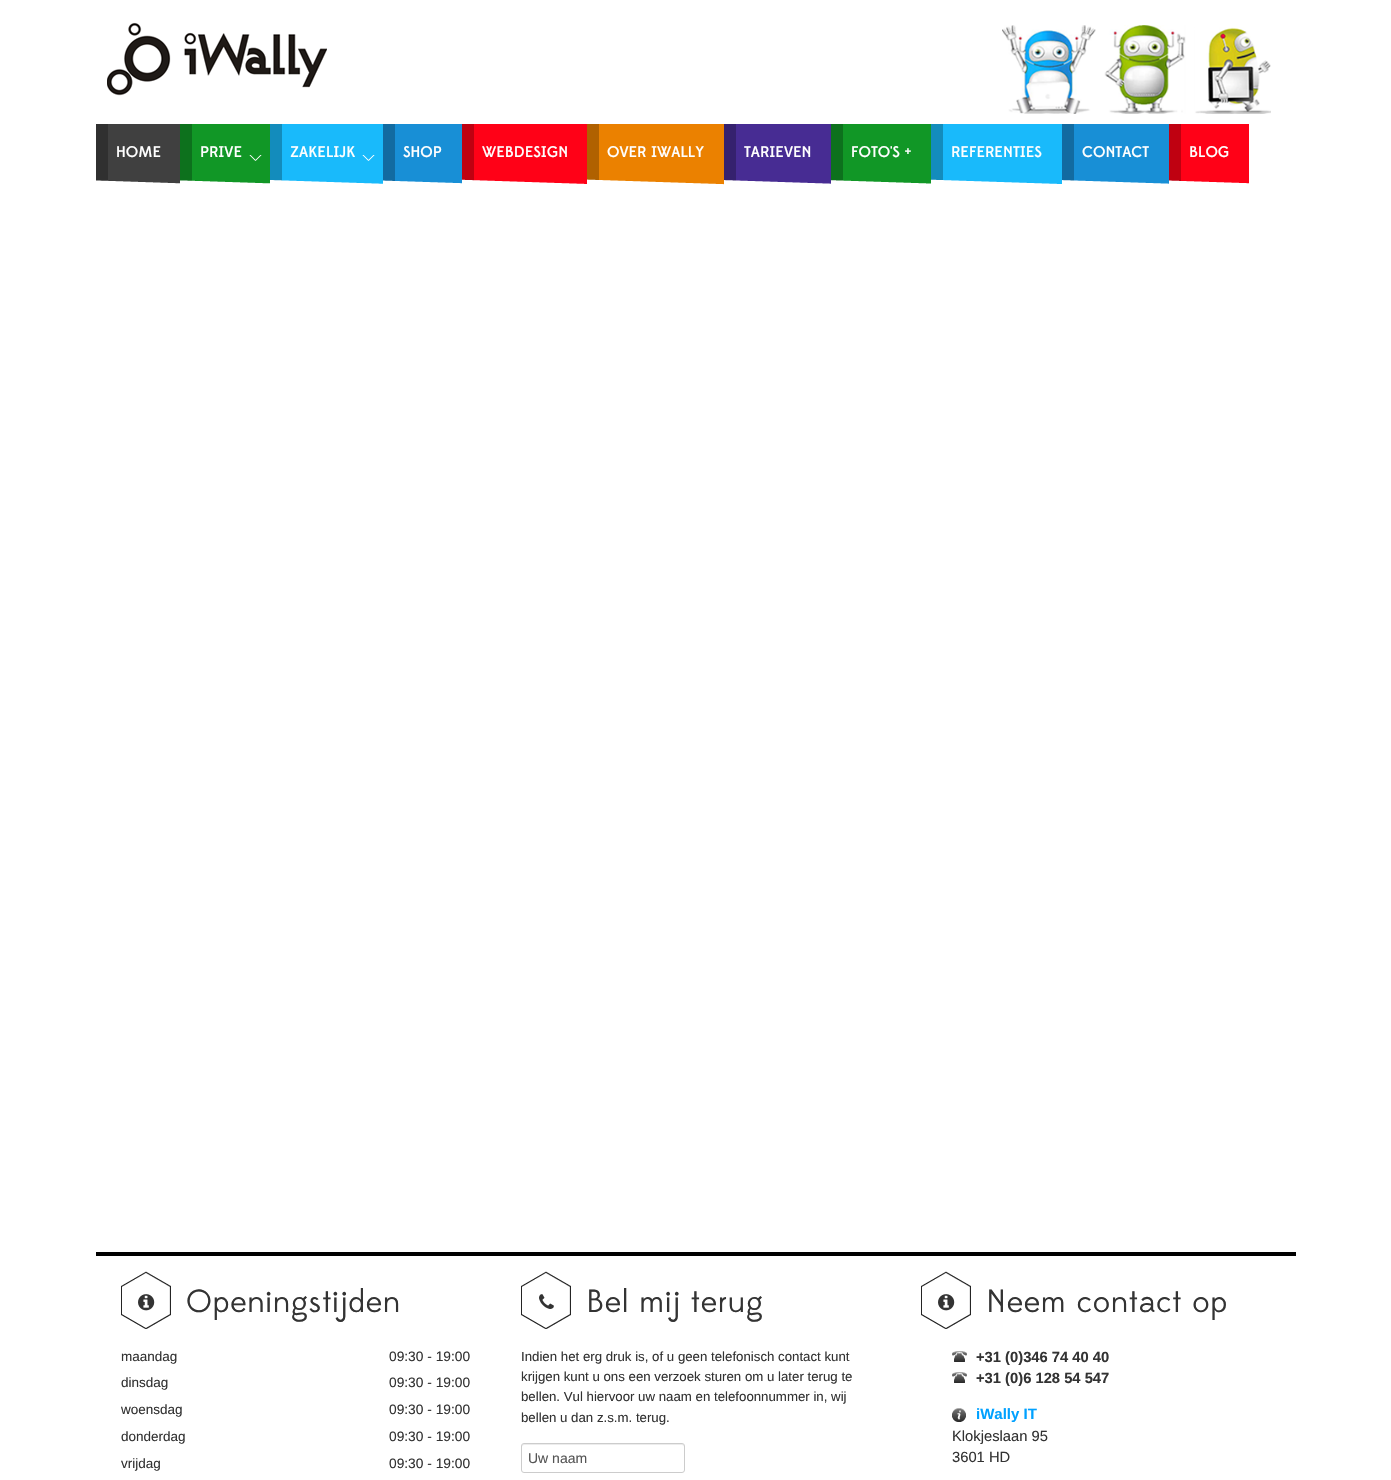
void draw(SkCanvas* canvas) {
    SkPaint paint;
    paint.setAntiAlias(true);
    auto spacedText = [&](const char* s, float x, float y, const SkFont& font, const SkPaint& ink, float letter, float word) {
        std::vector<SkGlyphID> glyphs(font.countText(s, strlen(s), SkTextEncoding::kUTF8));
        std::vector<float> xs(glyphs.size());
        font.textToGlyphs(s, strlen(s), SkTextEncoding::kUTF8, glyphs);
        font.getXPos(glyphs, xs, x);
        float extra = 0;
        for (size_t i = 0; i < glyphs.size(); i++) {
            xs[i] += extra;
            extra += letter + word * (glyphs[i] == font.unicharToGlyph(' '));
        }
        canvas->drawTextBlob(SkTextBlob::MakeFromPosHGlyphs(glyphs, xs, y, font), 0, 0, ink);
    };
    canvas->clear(0xFFFFFFFF);
    canvas->drawImageRect(SkImages::DeferredFromEncodedData(SkData::MakeFromFileName("img1.png")), SkRect::MakeXYWH(107, 22, 220, 74), SkSamplingOptions());
    canvas->drawImageRect(SkImages::DeferredFromEncodedData(SkData::MakeFromFileName("img2.png")), SkRect::MakeXYWH(1002, 25, 269, 89), SkSamplingOptions());
    paint.setColor(0xFF404040);
    canvas->drawRect(SkRect::MakeXYWH(108, 124, 72, 60), paint);
    paint.setColor(0xFF303030);
    canvas->drawRect(SkRect::MakeXYWH(96, 124, 12, 57), paint);
    SkFont font1(fontMgr->matchFamilyStyle("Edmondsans", SkFontStyle(500, SkFontStyle::kNormal_Width, SkFontStyle::kUpright_Slant)), 15.5f);
    font1.setSubpixel(true);
    paint.setColor(0xFFFFFFFF);
    canvas->drawString("HOME", 116, 157, font1, paint);
    canvas->drawImageRect(SkImages::DeferredFromEncodedData(SkData::MakeFromFileName("img3.png")), SkRect::MakeXYWH(96, 180, 84, 7), SkSamplingOptions());
    paint.setColor(0xFF119726);
    canvas->drawRect(SkRect::MakeXYWH(192, 124, 78, 60), paint);
    paint.setColor(0xFF0D711D);
    canvas->drawRect(SkRect::MakeXYWH(180, 124, 12, 57), paint);
    paint.setColor(0xFFFFFFFF);
    canvas->drawString("PRIVE", 200, 157, font1, paint);
    canvas->drawImageRect(SkImages::DeferredFromEncodedData(SkData::MakeFromFileName("img4.png")), SkRect::MakeXYWH(249, 155, 13, 6), SkSamplingOptions());
    canvas->drawImageRect(SkImages::DeferredFromEncodedData(SkData::MakeFromFileName("img5.png")), SkRect::MakeXYWH(180, 180, 90, 7), SkSamplingOptions());
    paint.setColor(0xFF19BAFB);
    canvas->drawRect(SkRect::MakeXYWH(282, 124, 101, 60), paint);
    paint.setColor(0xFF138CBC);
    canvas->drawRect(SkRect::MakeXYWH(270, 124, 12, 57), paint);
    paint.setColor(0xFFFFFFFF);
    canvas->drawString("ZAKELIJK", 290, 157, font1, paint);
    canvas->drawImageRect(SkImages::DeferredFromEncodedData(SkData::MakeFromFileName("img6.png")), SkRect::MakeXYWH(362, 155, 13, 6), SkSamplingOptions());
    canvas->drawImageRect(SkImages::DeferredFromEncodedData(SkData::MakeFromFileName("img7.png")), SkRect::MakeXYWH(270, 180, 113, 7), SkSamplingOptions());
    paint.setColor(0xFF188FD6);
    canvas->drawRect(SkRect::MakeXYWH(395, 124, 67, 60), paint);
    paint.setColor(0xFF126BA1);
    canvas->drawRect(SkRect::MakeXYWH(383, 124, 12, 57), paint);
    paint.setColor(0xFFFFFFFF);
    canvas->drawString("SHOP", 403, 157, font1, paint);
    canvas->drawImageRect(SkImages::DeferredFromEncodedData(SkData::MakeFromFileName("img8.png")), SkRect::MakeXYWH(383, 180, 79, 7), SkSamplingOptions());
    paint.setColor(0xFFFF0117);
    canvas->drawRect(SkRect::MakeXYWH(474, 124, 113, 60), paint);
    paint.setColor(0xFFBF0111);
    canvas->drawRect(SkRect::MakeXYWH(462, 124, 12, 57), paint);
    paint.setColor(0xFFFFFFFF);
    canvas->drawString("WEBDESIGN", 482, 157, font1, paint);
    canvas->drawImageRect(SkImages::DeferredFromEncodedData(SkData::MakeFromFileName("img9.png")), SkRect::MakeXYWH(462, 179, 125, 8), SkSamplingOptions());
    paint.setColor(0xFFEB8100);
    canvas->drawRect(SkRect::MakeXYWH(599, 124, 125, 61), paint);
    paint.setColor(0xFFB06100);
    canvas->drawRect(SkRect::MakeXYWH(587, 124, 12, 56), paint);
    paint.setColor(0xFFFFFFFF);
    canvas->drawString("OVER IWALLY", 607, 157, font1, paint);
    canvas->drawImageRect(SkImages::DeferredFromEncodedData(SkData::MakeFromFileName("img10.png")), SkRect::MakeXYWH(587, 179, 137, 8), SkSamplingOptions());
    paint.setColor(0xFF472C93);
    canvas->drawRect(SkRect::MakeXYWH(736, 124, 95, 60), paint);
    paint.setColor(0xFF35216E);
    canvas->drawRect(SkRect::MakeXYWH(724, 124, 12, 57), paint);
    paint.setColor(0xFFFFFFFF);
    canvas->drawString("TARIEVEN", 744, 157, font1, paint);
    canvas->drawImageRect(SkImages::DeferredFromEncodedData(SkData::MakeFromFileName("img11.png")), SkRect::MakeXYWH(724, 180, 107, 7), SkSamplingOptions());
    paint.setColor(0xFF119726);
    canvas->drawRect(SkRect::MakeXYWH(843, 124, 88, 60), paint);
    paint.setColor(0xFF0D711D);
    canvas->drawRect(SkRect::MakeXYWH(831, 124, 12, 57), paint);
    paint.setColor(0xFFFFFFFF);
    canvas->drawString("FOTO'S +", 851, 157, font1, paint);
    canvas->drawImageRect(SkImages::DeferredFromEncodedData(SkData::MakeFromFileName("img12.png")), SkRect::MakeXYWH(831, 180, 100, 7), SkSamplingOptions());
    paint.setColor(0xFF19BAFB);
    canvas->drawRect(SkRect::MakeXYWH(943, 124, 119, 60), paint);
    paint.setColor(0xFF138CBC);
    canvas->drawRect(SkRect::MakeXYWH(931, 124, 12, 56), paint);
    paint.setColor(0xFFFFFFFF);
    canvas->drawString("REFERENTIES", 951, 157, font1, paint);
    canvas->drawImageRect(SkImages::DeferredFromEncodedData(SkData::MakeFromFileName("img13.png")), SkRect::MakeXYWH(931, 179, 131, 8), SkSamplingOptions());
    paint.setColor(0xFF188FD6);
    canvas->drawRect(SkRect::MakeXYWH(1074, 124, 95, 60), paint);
    paint.setColor(0xFF126BA1);
    canvas->drawRect(SkRect::MakeXYWH(1062, 124, 12, 57), paint);
    paint.setColor(0xFFFFFFFF);
    canvas->drawString("CONTACT", 1082, 157, font1, paint);
    canvas->drawImageRect(SkImages::DeferredFromEncodedData(SkData::MakeFromFileName("img14.png")), SkRect::MakeXYWH(1062, 180, 107, 7), SkSamplingOptions());
    paint.setColor(0xFFFF0117);
    canvas->drawRect(SkRect::MakeXYWH(1181, 124, 68, 60), paint);
    paint.setColor(0xFFBF0111);
    canvas->drawRect(SkRect::MakeXYWH(1169, 124, 12, 57), paint);
    paint.setColor(0xFFFFFFFF);
    canvas->drawString("BLOG", 1189, 157, font1, paint);
    canvas->drawImageRect(SkImages::DeferredFromEncodedData(SkData::MakeFromFileName("img15.png")), SkRect::MakeXYWH(1169, 180, 80, 7), SkSamplingOptions());
    paint.setColor(0xFF000000);
    canvas->drawRect(SkRect::MakeXYWH(96, 1252, 1200, 4), paint);
    canvas->drawImageRect(SkImages::DeferredFromEncodedData(SkData::MakeFromFileName("img16.png")), SkRect::MakeXYWH(121, 1271, 50, 58), SkSamplingOptions());
    canvas->drawImageRect(SkImages::DeferredFromEncodedData(SkData::MakeFromFileName("img17.png")), SkRect::MakeXYWH(138, 1294, 17, 17), SkSamplingOptions());
    SkFont font2(fontMgr->matchFamilyStyle("Edmondsans", SkFontStyle::Normal()), 32);
    font2.setSubpixel(true);
    paint.setColor(0xFF333333);
    spacedText("Openingstijden", 186, 1312, font2, paint, 0.6f, 0);
    SkFont font3(fontMgr->matchFamilyStyle("Liberation Sans", SkFontStyle::Normal()), 13.5f);
    font3.setSubpixel(true);
    canvas->drawString("maandag", 121, 1361, font3, paint);
    SkFont font4(fontMgr->matchFamilyStyle("Liberation Sans", SkFontStyle::Normal()), 13.75f);
    font4.setSubpixel(true);
    canvas->drawString("09:30 - 19:00", 389, 1361, font4, paint);
    canvas->drawString("dinsdag", 121, 1387, font3, paint);
    canvas->drawString("09:30 - 19:00", 389, 1387, font4, paint);
    canvas->drawString("woensdag", 121, 1414, font3, paint);
    canvas->drawString("09:30 - 19:00", 389, 1414, font4, paint);
    canvas->drawString("donderdag", 121, 1441, font3, paint);
    canvas->drawString("09:30 - 19:00", 389, 1441, font4, paint);
    canvas->drawString("vrijdag", 121, 1468, font3, paint);
    canvas->drawString("09:30 - 19:00", 389, 1468, font4, paint);
    canvas->drawImageRect(SkImages::DeferredFromEncodedData(SkData::MakeFromFileName("img16.png")), SkRect::MakeXYWH(521, 1271, 50, 58), SkSamplingOptions());
    canvas->drawImageRect(SkImages::DeferredFromEncodedData(SkData::MakeFromFileName("img18.png")), SkRect::MakeXYWH(539, 1294, 15, 15), SkSamplingOptions());
    spacedText("Bel mij terug", 586, 1312, font2, paint, 0.6f, 0);
    SkFont font5(fontMgr->matchFamilyStyle("Liberation Sans", SkFontStyle::Normal()), 13.25f);
    font5.setSubpixel(true);
    canvas->drawString("Indien het erg druk is, of u geen telefonisch contact kunt", 521, 1361, font5, paint);
    canvas->drawString("krijgen kunt u ons een verzoek sturen om u later terug te", 521, 1381, font5, paint);
    canvas->drawString("bellen. Vul hiervoor uw naam en telefoonnummer in, wij", 521, 1401, font5, paint);
    canvas->drawString("bellen u dan z.s.m. terug.", 521, 1422, font5, paint);
    paint.setColor(0xFFECECEC);
    canvas->drawPath(SkPathBuilder().moveTo(524, 1445).lineTo(682, 1445).cubicTo(683, 1445, 684, 1446, 684, 1447).cubicTo(684, 1446, 684, 1444, 682, 1444).lineTo(524, 1444).cubicTo(522, 1444, 522, 1446, 522, 1447).cubicTo(522, 1446, 523, 1445, 524, 1445).close().detach(), paint);
    paint.setStyle(SkPaint::kStroke_Style);
    paint.setStrokeWidth(1);
    paint.setColor(0xFFCCCCCC);
    canvas->drawRoundRect(SkRect::MakeXYWH(521.5f, 1443.5f, 163, 29), 2.5f, 2.5f, paint);
    SkFont font6(fontMgr->matchFamilyStyle("Liberation Sans", SkFontStyle::Normal()), 14);
    font6.setSubpixel(true);
    paint.setStyle(SkPaint::kFill_Style);
    paint.setColor(0xFF555555);
    canvas->drawString("Uw naam", 528, 1463, font6, paint);
    canvas->drawImageRect(SkImages::DeferredFromEncodedData(SkData::MakeFromFileName("img16.png")), SkRect::MakeXYWH(921, 1271, 50, 58), SkSamplingOptions());
    canvas->drawImageRect(SkImages::DeferredFromEncodedData(SkData::MakeFromFileName("img17.png")), SkRect::MakeXYWH(938, 1294, 17, 17), SkSamplingOptions());
    paint.setColor(0xFF333333);
    spacedText("Neem contact op", 986, 1312, font2, paint, 0.6f, 0);
    canvas->drawImageRect(SkImages::DeferredFromEncodedData(SkData::MakeFromFileName("img19.png")), SkRect::MakeXYWH(952, 1351, 15, 11), SkSamplingOptions());
    SkFont font7(fontMgr->matchFamilyStyle("Liberation Sans", SkFontStyle::Bold()), 14.75f);
    font7.setSubpixel(true);
    canvas->drawString("+31 (0)346 74 40 40", 976, 1362, font7, paint);
    canvas->drawImageRect(SkImages::DeferredFromEncodedData(SkData::MakeFromFileName("img19.png")), SkRect::MakeXYWH(952, 1372, 15, 11), SkSamplingOptions());
    canvas->drawString("+31 (0)6 128 54 547", 976, 1383, font7, paint);
    canvas->drawImageRect(SkImages::DeferredFromEncodedData(SkData::MakeFromFileName("img20.png")), SkRect::MakeXYWH(952, 1408, 14, 14), SkSamplingOptions());
    SkFont font8(fontMgr->matchFamilyStyle("Liberation Sans", SkFontStyle::Bold()), 15);
    font8.setSubpixel(true);
    paint.setColor(0xFF00A1FF);
    canvas->drawString("iWally IT", 976, 1419, font8, paint);
    SkFont font9(fontMgr->matchFamilyStyle("Liberation Sans", SkFontStyle::Normal()), 14.75f);
    font9.setSubpixel(true);
    paint.setColor(0xFF333333);
    canvas->drawString("Klokjeslaan 95", 952, 1441, font9, paint);
    canvas->drawString("3601 HD", 952, 1462, font9, paint);
}
